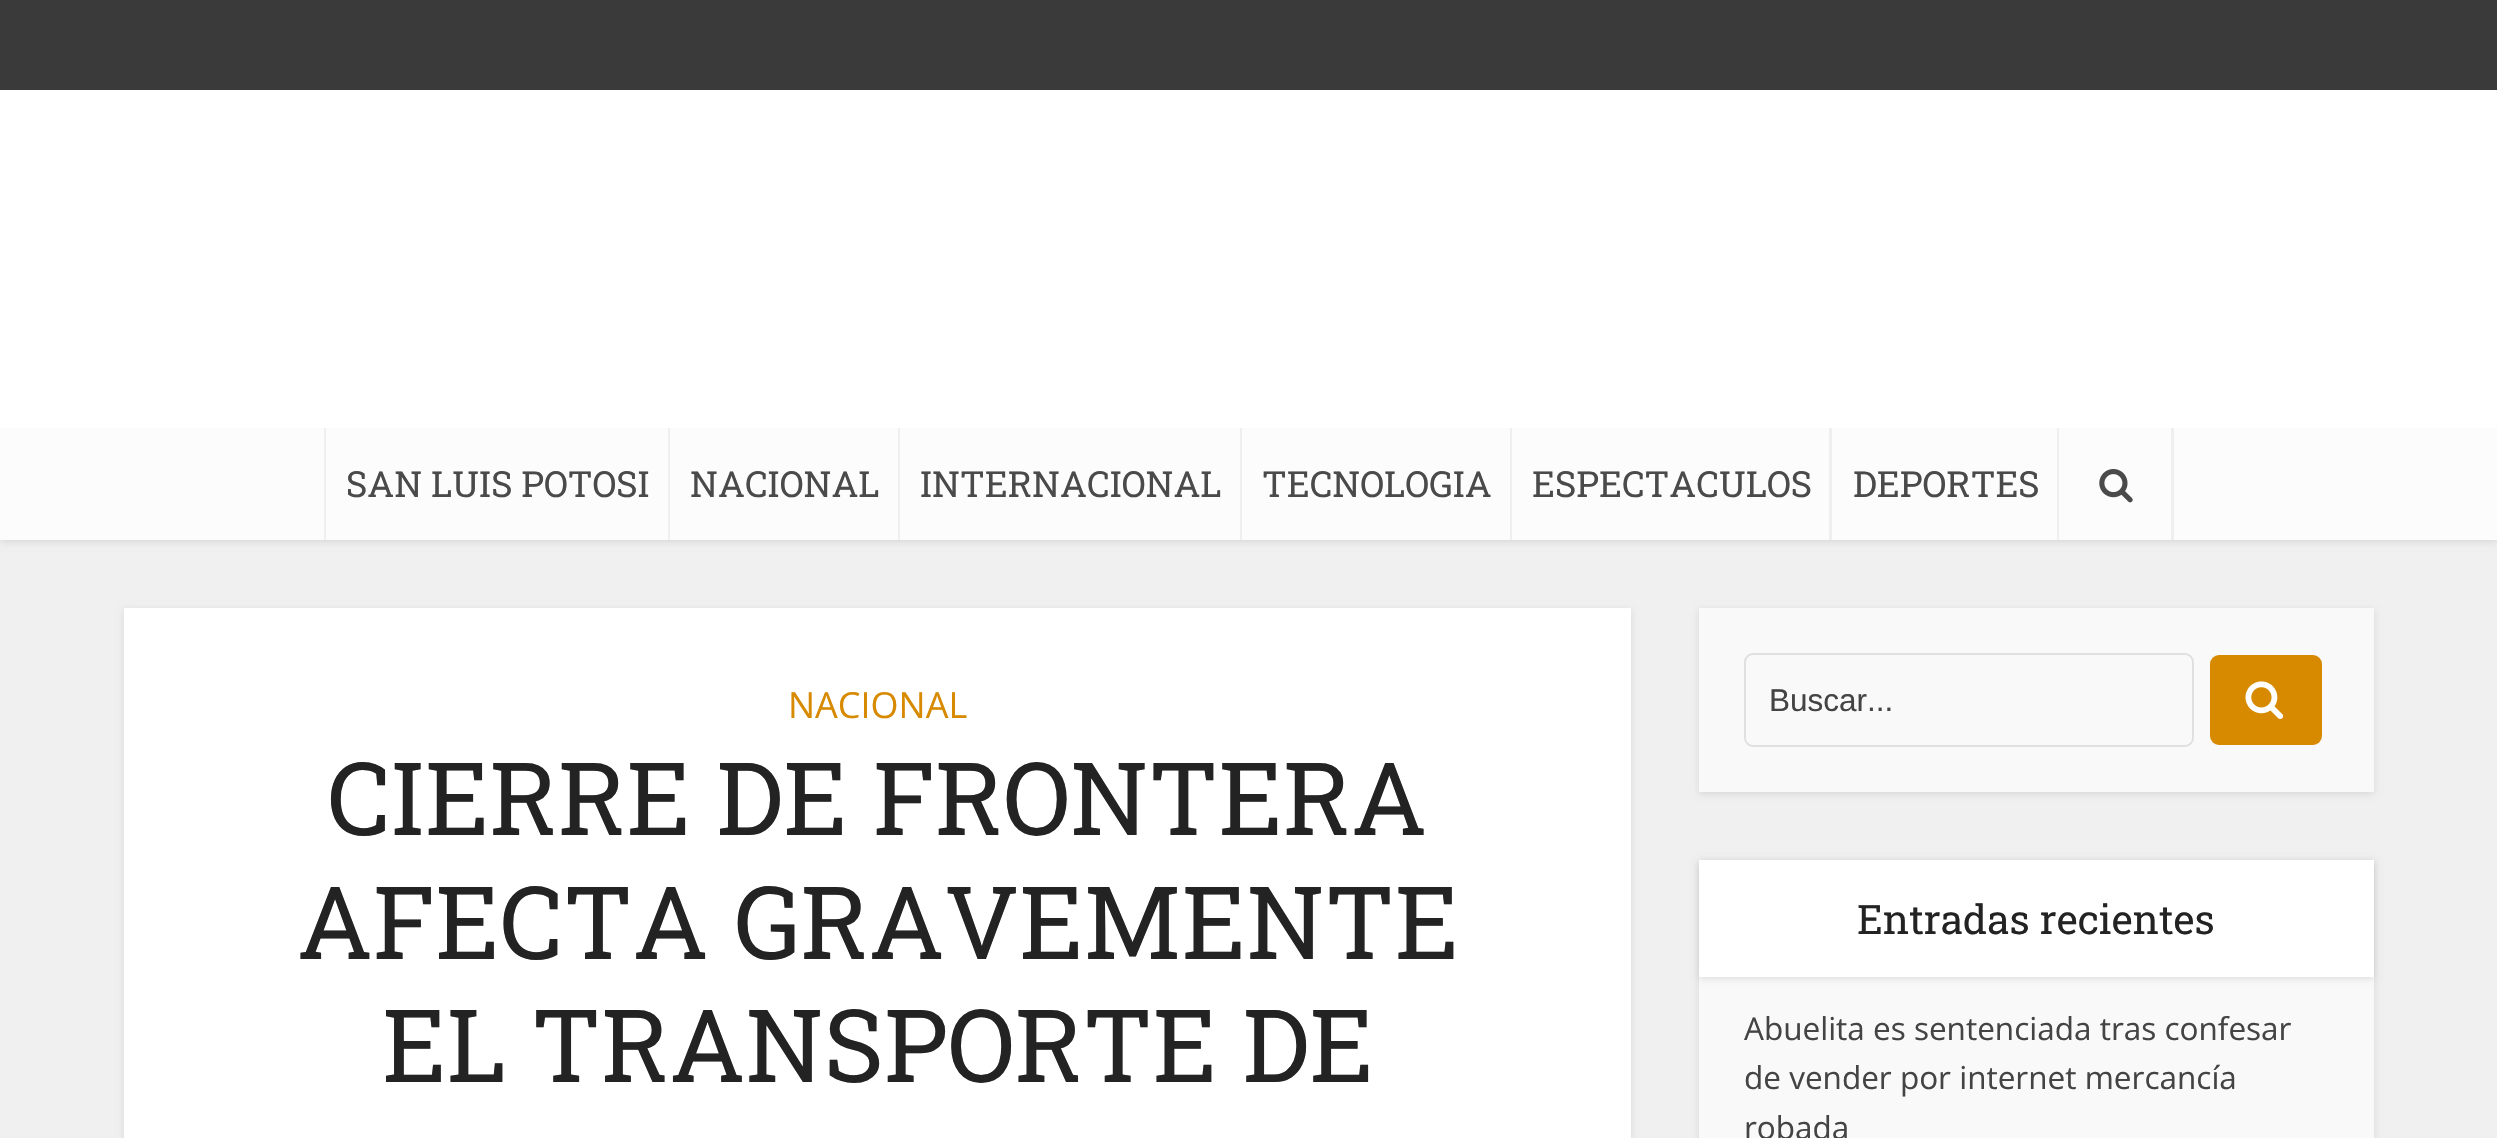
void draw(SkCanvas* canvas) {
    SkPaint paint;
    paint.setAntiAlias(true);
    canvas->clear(0xFFF0F0F0);
    paint.setColor(0x1A000000);
    paint.setMaskFilter(SkMaskFilter::MakeBlur(kNormal_SkBlurStyle, 3.5f));
    canvas->drawRect(SkRect::MakeXYWH(0, 2, 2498, 540), paint);
    paint.setMaskFilter(nullptr);
    paint.setColor(0xFFFFFFFF);
    canvas->drawRect(SkRect::MakeXYWH(0, 90, 2497, 338), paint);
    paint.setColor(0xFF3A3A3A);
    canvas->drawRect(SkRect::MakeXYWH(0, 0, 2497, 90), paint);
    paint.setColor(0xFFFCFCFC);
    canvas->drawRect(SkRect::MakeXYWH(0, 428, 2497, 112), paint);
    paint.setColor(0xFFEFEFEF);
    canvas->drawRect(SkRect::MakeXYWH(324, 428, 2, 112), paint);
    SkFont font1(fontMgr->matchFamilyStyle("Roboto Slab", SkFontStyle::Normal()), 36);
    font1.setSubpixel(true);
    paint.setColor(0xFF4A4A4A);
    canvas->drawString("SAN LUIS POTOSI", 346, 497, font1, paint);
    paint.setColor(0xFFEFEFEF);
    canvas->drawRect(SkRect::MakeXYWH(668, 428, 2, 112), paint);
    paint.setColor(0xFF4A4A4A);
    canvas->drawString("NACIONAL", 690, 497, font1, paint);
    paint.setColor(0xFFEFEFEF);
    canvas->drawRect(SkRect::MakeXYWH(898, 428, 2, 112), paint);
    paint.setColor(0xFF4A4A4A);
    canvas->drawString("INTERNACIONAL", 920, 497, font1, paint);
    paint.setColor(0xFFEFEFEF);
    canvas->drawRect(SkRect::MakeXYWH(1240, 428, 2, 112), paint);
    paint.setColor(0xFF4A4A4A);
    canvas->drawString("TECNOLOGIA", 1262, 497, font1, paint);
    paint.setColor(0xFFEFEFEF);
    canvas->drawRect(SkRect::MakeXYWH(1510, 428, 2, 112), paint);
    paint.setColor(0xFF4A4A4A);
    canvas->drawString("ESPECTACULOS", 1532, 497, font1, paint);
    paint.setColor(0xFFEFEFEF);
    canvas->drawRect(SkRect::MakeXYWH(1829, 428, 3, 112), paint);
    paint.setColor(0xFF4A4A4A);
    canvas->drawString("DEPORTES", 1853, 497, font1, paint);
    paint.setColor(0xFFEFEFEF);
    canvas->drawRect(SkRect::MakeXYWH(2171, 428, 3, 112), paint);
    canvas->drawRect(SkRect::MakeXYWH(2057, 428, 2, 112), paint);
    canvas->drawImageRect(SkImages::DeferredFromEncodedData(SkData::MakeFromFileName("img1.png")), SkRect::MakeXYWH(2099, 469, 34, 34), SkSamplingOptions());
    paint.setColor(0x1A000000);
    paint.setMaskFilter(SkMaskFilter::MakeBlur(kNormal_SkBlurStyle, 3.5f));
    canvas->drawRect(SkRect::MakeXYWH(124, 610, 1507, 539), paint);
    paint.setMaskFilter(nullptr);
    paint.setColor(0xFFFFFFFF);
    canvas->drawRect(SkRect::MakeXYWH(124, 608, 1507, 530), paint);
    SkFont font2(fontMgr->matchFamilyStyle("Open Sans", SkFontStyle::Normal()), 36);
    font2.setSubpixel(true);
    paint.setColor(0xFFD78A00);
    canvas->drawString("NACIONAL", 788, 718, font2, paint);
    SkFont font3(fontMgr->matchFamilyStyle("Roboto Slab", SkFontStyle::Normal()), 101.25f);
    font3.setSubpixel(true);
    paint.setColor(0xFF232323);
    canvas->drawString("CIERRE DE FRONTERA", 327, 835, font3, paint);
    canvas->drawString("AFECTA GRAVEMENTE", 297, 959, font3, paint);
    canvas->drawString("EL TRANSPORTE DE", 382, 1082, font3, paint);
    paint.setColor(0x1A000000);
    paint.setMaskFilter(SkMaskFilter::MakeBlur(kNormal_SkBlurStyle, 3.5f));
    canvas->drawRect(SkRect::MakeXYWH(1699, 610, 675, 184), paint);
    paint.setMaskFilter(nullptr);
    paint.setColor(0xFFF9F9F9);
    canvas->drawRect(SkRect::MakeXYWH(1699, 608, 675, 184), paint);
    paint.setStyle(SkPaint::kStroke_Style);
    paint.setStrokeWidth(2);
    paint.setColor(0xFFE0E0E0);
    canvas->drawRoundRect(SkRect::MakeXYWH(1745, 654, 448, 92), 8, 8, paint);
    SkFont font4(fontMgr->matchFamilyStyle("Liberation Sans", SkFontStyle::Normal()), 31.5f);
    font4.setSubpixel(true);
    paint.setStyle(SkPaint::kFill_Style);
    paint.setColor(0xFF444444);
    canvas->drawString("Buscar...", 1769, 711, font4, paint);
    paint.setColor(0xFFD78A00);
    canvas->drawRoundRect(SkRect::MakeXYWH(2210, 655, 112, 90), 9, 9, paint);
    canvas->drawImageRect(SkImages::DeferredFromEncodedData(SkData::MakeFromFileName("img2.png")), SkRect::MakeXYWH(2245, 681, 39, 38), SkSamplingOptions());
    paint.setColor(0x1A000000);
    paint.setMaskFilter(SkMaskFilter::MakeBlur(kNormal_SkBlurStyle, 3.5f));
    canvas->drawRect(SkRect::MakeXYWH(1699, 862, 675, 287), paint);
    paint.setMaskFilter(nullptr);
    paint.setColor(0xFFF9F9F9);
    canvas->drawRect(SkRect::MakeXYWH(1699, 977, 675, 161), paint);
    paint.setColor(0x1A000000);
    paint.setMaskFilter(SkMaskFilter::MakeBlur(kNormal_SkBlurStyle, 3.5f));
    canvas->drawRect(SkRect::MakeXYWH(1699, 862, 675, 117), paint);
    paint.setMaskFilter(nullptr);
    paint.setColor(0xFFFFFFFF);
    canvas->drawRect(SkRect::MakeXYWH(1699, 860, 675, 117), paint);
    SkFont font5(fontMgr->matchFamilyStyle("Roboto Slab", SkFontStyle::Normal()), 40.5f);
    font5.setSubpixel(true);
    paint.setColor(0xFF232323);
    canvas->drawString("Entradas recientes", 1857, 934, font5, paint);
    SkFont font6(fontMgr->matchFamilyStyle("Open Sans", SkFontStyle::Normal()), 31.5f);
    font6.setSubpixel(true);
    paint.setColor(0xFF444444);
    canvas->drawString("Abuelita es sentenciada tras confesar", 1744, 1040, font6, paint);
    canvas->drawString("de vender por internet mercancía", 1744, 1089, font6, paint);
    canvas->drawString("robada", 1744, 1139, font6, paint);
}
